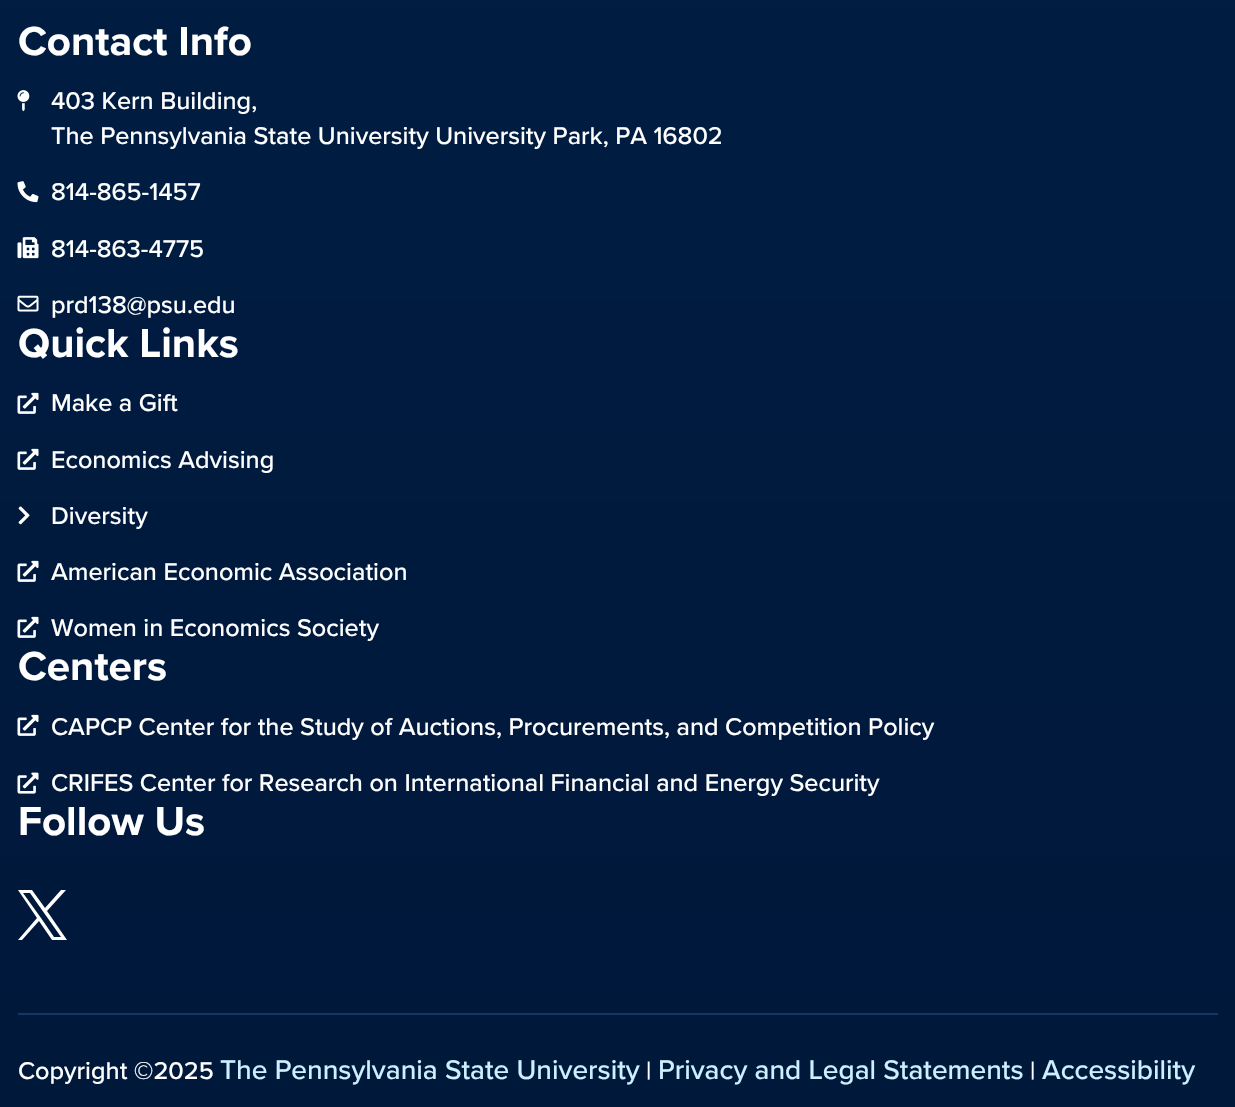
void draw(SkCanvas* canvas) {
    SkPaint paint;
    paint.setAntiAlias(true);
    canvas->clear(0xFFFFFFFF);
    {
        const SkColor colors[] = {0xFF001E43, 0xFF001739};
        const float stops[] = {0, 1};
        const SkPoint ends[] = {{618, -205}, {618, 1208}};
        paint.setShader(SkGradientShader::MakeLinear(ends, colors, stops, 2, SkTileMode::kClamp));
        paint.setAlpha(255);
    }
    canvas->drawRect(SkRect::MakeXYWH(0, 0, 1235, 1107), paint);
    SkFont font1(fontMgr->matchFamilyStyle("Proxima Nova", SkFontStyle::Bold()), 42);
    font1.setSubpixel(true);
    paint.setShader(nullptr);
    paint.setColor(0xFFFFFFFF);
    canvas->drawString("Contact Info", 18, 55, font1, paint);
    canvas->drawImageRect(SkImages::DeferredFromEncodedData(SkData::MakeFromFileName("img1.png")), SkRect::MakeXYWH(17, 90, 13, 22), SkSamplingOptions());
    SkFont font2(fontMgr->matchFamilyStyle("Proxima Nova", SkFontStyle(500, SkFontStyle::kNormal_Width, SkFontStyle::kUpright_Slant)), 25.2f);
    font2.setSubpixel(true);
    canvas->drawString("403 Kern Building,", 51, 109, font2, paint);
    canvas->drawString("The Pennsylvania State University University Park, PA 16802", 51, 144, font2, paint);
    canvas->drawImageRect(SkImages::DeferredFromEncodedData(SkData::MakeFromFileName("img2.png")), SkRect::MakeXYWH(17, 181, 22, 22), SkSamplingOptions());
    canvas->drawString("814-865-1457", 51, 200, font2, paint);
    canvas->drawImageRect(SkImages::DeferredFromEncodedData(SkData::MakeFromFileName("img3.png")), SkRect::MakeXYWH(17, 237, 22, 22), SkSamplingOptions());
    canvas->drawString("814-863-4775", 51, 257, font2, paint);
    canvas->drawImageRect(SkImages::DeferredFromEncodedData(SkData::MakeFromFileName("img4.png")), SkRect::MakeXYWH(17, 295, 22, 17), SkSamplingOptions());
    canvas->drawString("prd138@psu.edu", 51, 313, font2, paint);
    canvas->drawString("Quick Links", 18, 357, font1, paint);
    canvas->drawImageRect(SkImages::DeferredFromEncodedData(SkData::MakeFromFileName("img5.png")), SkRect::MakeXYWH(17, 392, 22, 22), SkSamplingOptions());
    canvas->drawString("Make a Gift", 51, 411, font2, paint);
    canvas->drawImageRect(SkImages::DeferredFromEncodedData(SkData::MakeFromFileName("img6.png")), SkRect::MakeXYWH(17, 448, 22, 22), SkSamplingOptions());
    canvas->drawString("Economics Advising", 51, 468, font2, paint);
    canvas->drawImageRect(SkImages::DeferredFromEncodedData(SkData::MakeFromFileName("img7.png")), SkRect::MakeXYWH(18, 506, 12, 19), SkSamplingOptions());
    canvas->drawString("Diversity", 51, 524, font2, paint);
    canvas->drawImageRect(SkImages::DeferredFromEncodedData(SkData::MakeFromFileName("img8.png")), SkRect::MakeXYWH(17, 560, 22, 22), SkSamplingOptions());
    canvas->drawString("American Economic Association", 51, 580, font2, paint);
    canvas->drawImageRect(SkImages::DeferredFromEncodedData(SkData::MakeFromFileName("img9.png")), SkRect::MakeXYWH(17, 616, 22, 22), SkSamplingOptions());
    canvas->drawString("Women in Economics Society", 51, 636, font2, paint);
    canvas->drawString("Centers", 18, 680, font1, paint);
    canvas->drawImageRect(SkImages::DeferredFromEncodedData(SkData::MakeFromFileName("img10.png")), SkRect::MakeXYWH(17, 714, 22, 22), SkSamplingOptions());
    canvas->drawString("CAPCP Center for the Study of Auctions, Procurements, and Competition Policy", 51, 735, font2, paint);
    canvas->drawImageRect(SkImages::DeferredFromEncodedData(SkData::MakeFromFileName("img11.png")), SkRect::MakeXYWH(17, 772, 22, 22), SkSamplingOptions());
    canvas->drawString("CRIFES Center for Research on International Financial and Energy Security", 51, 791, font2, paint);
    canvas->drawString("Follow Us", 18, 835, font1, paint);
    canvas->drawPath(SkPathBuilder().moveTo(47, 911).lineTo(66, 890).lineTo(61, 890).lineTo(45, 908).lineTo(32, 890).lineTo(18, 890).lineTo(37, 918).lineTo(18, 940).lineTo(22, 940).lineTo(39, 921).lineTo(52, 940).lineTo(67, 940).close().moveTo(41, 918).lineTo(23, 893).lineTo(30, 893).lineTo(61, 937).lineTo(54, 937).close().detach(), paint);
    paint.setColor(0xFF16366B);
    canvas->drawRect(SkRect::MakeXYWH(18, 1013, 1200, 2), paint);
    paint.setColor(0xFFFFFFFF);
    canvas->drawString("Copyright ©2025", 18, 1079, font2, paint);
    SkFont font3(fontMgr->matchFamilyStyle("Proxima Nova", SkFontStyle(500, SkFontStyle::kNormal_Width, SkFontStyle::kUpright_Slant)), 28);
    font3.setSubpixel(true);
    paint.setColor(0xFFCCF0FF);
    canvas->drawString("The Pennsylvania State University", 220, 1079, font3, paint);
    paint.setColor(0xFFFFFFFF);
    canvas->drawString("|", 646, 1079, font2, paint);
    paint.setColor(0xFFCCF0FF);
    canvas->drawString("Privacy and Legal Statements", 658, 1079, font3, paint);
    paint.setColor(0xFFFFFFFF);
    canvas->drawString("|", 1030, 1079, font2, paint);
    paint.setColor(0xFFCCF0FF);
    canvas->drawString("Accessibility", 1042, 1079, font3, paint);
}
